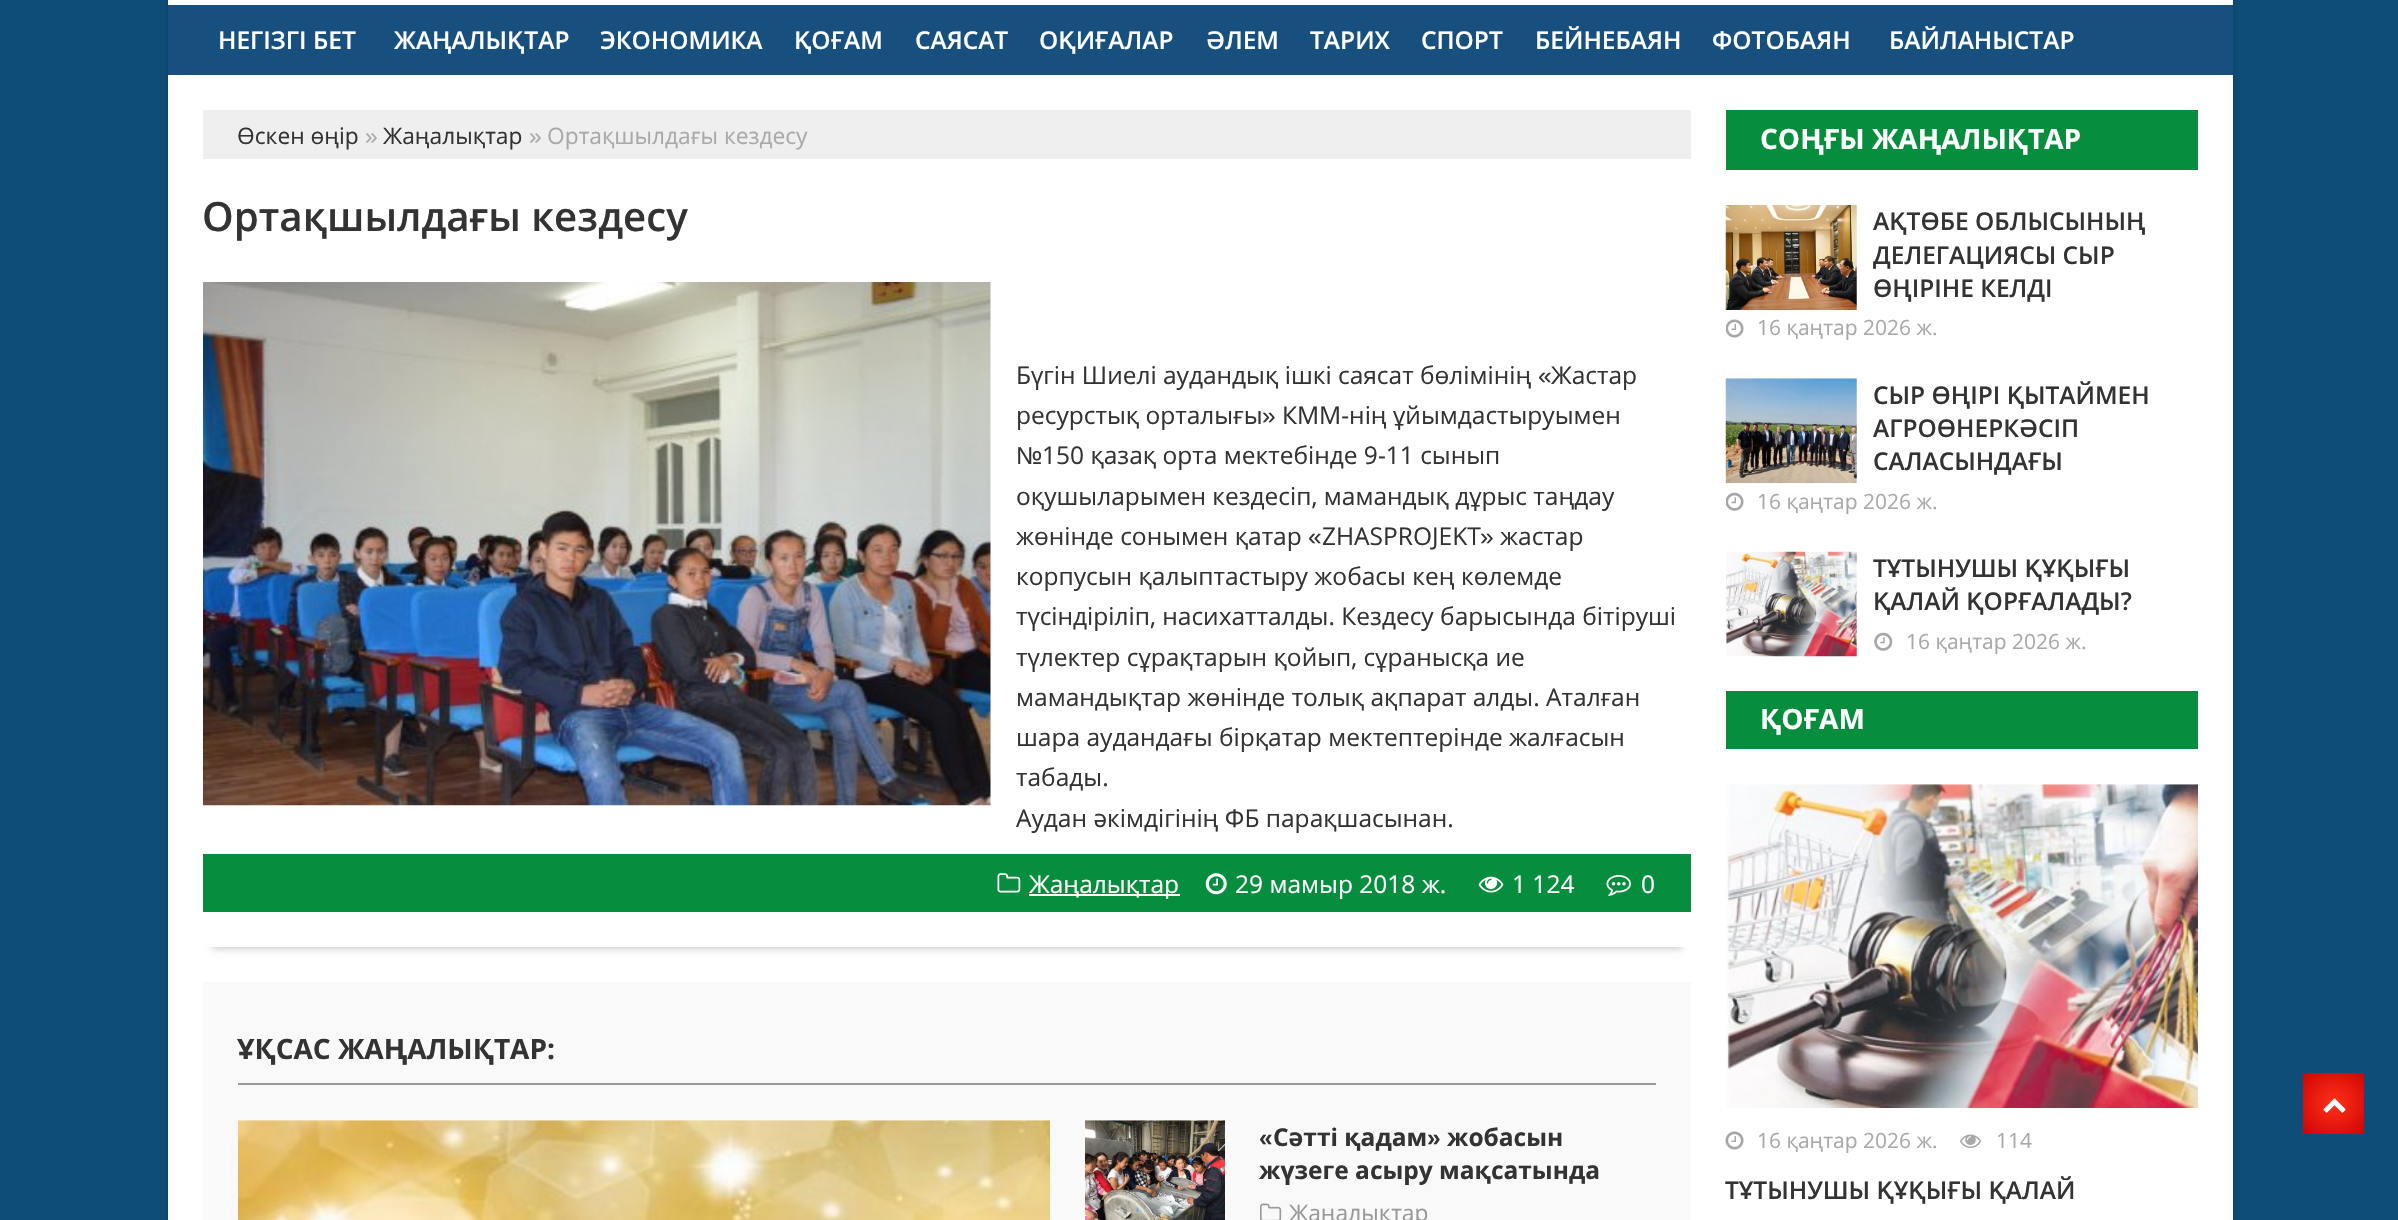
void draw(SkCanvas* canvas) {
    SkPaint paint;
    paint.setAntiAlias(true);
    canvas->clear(0xFF0D4D78);
    paint.setColor(0x33000000);
    paint.setMaskFilter(SkMaskFilter::MakeBlur(kNormal_SkBlurStyle, 3.5f));
    canvas->drawRect(SkRect::MakeXYWH(168, -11, 2065, 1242), paint);
    paint.setMaskFilter(nullptr);
    paint.setColor(0xFFFFFFFF);
    canvas->drawRect(SkRect::MakeXYWH(168, 0, 2065, 1220), paint);
    paint.setColor(0xFF174F7E);
    canvas->drawRect(SkRect::MakeXYWH(168, 5, 2065, 70), paint);
    SkFont font1(fontMgr->matchFamilyStyle("Open Sans", SkFontStyle(600, SkFontStyle::kNormal_Width, SkFontStyle::kUpright_Slant)), 24.5f);
    font1.setSubpixel(true);
    paint.setColor(0xFFFFFFFF);
    canvas->drawString("НЕГІЗГІ БЕТ", 218, 49, font1, paint);
    canvas->drawString("ЖАҢАЛЫҚТАР", 394, 49, font1, paint);
    canvas->drawString("ЭКОНОМИКА", 600, 49, font1, paint);
    canvas->drawString("ҚОҒАМ", 794, 49, font1, paint);
    canvas->drawString("САЯСАТ", 915, 49, font1, paint);
    canvas->drawString("ОҚИҒАЛАР", 1039, 49, font1, paint);
    canvas->drawString("ӘЛЕМ", 1206, 49, font1, paint);
    canvas->drawString("ТАРИХ", 1310, 49, font1, paint);
    canvas->drawString("СПОРТ", 1421, 49, font1, paint);
    canvas->drawString("БЕЙНЕБАЯН", 1535, 49, font1, paint);
    canvas->drawString("ФОТОБАЯН", 1712, 49, font1, paint);
    canvas->drawString("БАЙЛАНЫСТАР", 1889, 49, font1, paint);
    paint.setColor(0xFFEFEFEF);
    canvas->drawRect(SkRect::MakeXYWH(203, 110, 1488, 49), paint);
    SkFont font2(fontMgr->matchFamilyStyle("Open Sans", SkFontStyle::Normal()), 22.75f);
    font2.setSubpixel(true);
    paint.setColor(0xFF333333);
    canvas->drawString("Өскен өңір", 237, 144, font2, paint);
    SkFont font3(fontMgr->matchFamilyStyle("Liberation Sans", SkFontStyle::Normal()), 22.75f);
    font3.setSubpixel(true);
    paint.setColor(0xFFA9A9A9);
    canvas->drawString("»", 365, 144, font3, paint);
    paint.setColor(0xFF333333);
    canvas->drawString("Жаңалықтар", 383, 144, font2, paint);
    paint.setColor(0xFFA9A9A9);
    canvas->drawString("»", 529, 144, font3, paint);
    canvas->drawString("Ортақшылдағы кездесу", 547, 144, font2, paint);
    canvas->save();
    canvas->clipPath(SkPathBuilder(SkPathFillType::kEvenOdd).moveTo(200, 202).lineTo(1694, 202).lineTo(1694, 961).lineTo(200, 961).close().moveTo(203, 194).lineTo(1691, 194).lineTo(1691, 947).lineTo(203, 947).close().detach(), true);
    paint.setColor(0x33000000);
    paint.setMaskFilter(SkMaskFilter::MakeBlur(kNormal_SkBlurStyle, 3.5f));
    canvas->drawRect(SkRect::MakeXYWH(212, 214, 1470, 735), paint);
    paint.setMaskFilter(nullptr);
    canvas->restore();
    SkFont font4(fontMgr->matchFamilyStyle("Open Sans", SkFontStyle(600, SkFontStyle::kNormal_Width, SkFontStyle::kUpright_Slant)), 40.25f);
    font4.setSubpixel(true);
    paint.setColor(0xFF333333);
    canvas->drawString("Ортақшылдағы кездесу", 202, 231, font4, paint);
    canvas->drawImageRect(SkImages::DeferredFromEncodedData(SkData::MakeFromFileName("img1.png")), SkRect::MakeXYWH(203, 282, 788, 524), SkSamplingOptions());
    SkFont font5(fontMgr->matchFamilyStyle("Open Sans", SkFontStyle::Normal()), 24.5f);
    font5.setSubpixel(true);
    canvas->drawString("Бүгін Шиелі аудандық ішкі саясат бөлімінің", 1016, 384, font5, paint);
    SkFont font6(fontMgr->matchFamilyStyle("Liberation Sans", SkFontStyle::Normal()), 24.5f);
    font6.setSubpixel(true);
    canvas->drawString("«", 1538, 384, font6, paint);
    canvas->drawString("Жастар", 1551, 384, font5, paint);
    canvas->drawString("ресурстық орталығы", 1016, 424, font5, paint);
    canvas->drawString("»", 1262, 424, font6, paint);
    canvas->drawString("КММ-нің ұйымдастыруымен", 1282, 424, font5, paint);
    canvas->drawString("№", 1016, 464, font6, paint);
    canvas->drawString("150 қазақ орта мектебінде 9-11 сынып", 1042, 464, font5, paint);
    canvas->drawString("оқушыларымен кездесіп, мамандық дұрыс таңдау", 1016, 505, font5, paint);
    canvas->drawString("жөнінде сонымен қатар", 1016, 545, font5, paint);
    canvas->drawString("«", 1308, 545, font6, paint);
    canvas->drawString("ZHASPROJEKT", 1322, 545, font5, paint);
    canvas->drawString("»", 1480, 545, font6, paint);
    canvas->drawString("жастар", 1500, 545, font5, paint);
    canvas->drawString("корпусын қалыптастыру жобасы кең көлемде", 1016, 585, font5, paint);
    canvas->drawString("түсіндіріліп, насихатталды. Кездесу барысында бітіруші", 1016, 625, font5, paint);
    canvas->drawString("түлектер сұрақтарын қойып, сұранысқа ие", 1016, 666, font5, paint);
    canvas->drawString("мамандықтар жөнінде толық ақпарат алды. Аталған", 1016, 706, font5, paint);
    canvas->drawString("шара аудандағы бірқатар мектептерінде жалғасын", 1016, 746, font5, paint);
    canvas->drawString("табады.", 1016, 786, font5, paint);
    canvas->drawString("Аудан әкімдігінің ФБ парақшасынан.", 1016, 827, font5, paint);
    paint.setColor(0xFF068E3E);
    canvas->drawRect(SkRect::MakeXYWH(203, 854, 1488, 58), paint);
    canvas->drawImageRect(SkImages::DeferredFromEncodedData(SkData::MakeFromFileName("img2.png")), SkRect::MakeXYWH(997, 873, 24, 20), SkSamplingOptions());
    paint.setColor(0xFFFFFFFF);
    canvas->drawRect(SkRect::MakeXYWH(1029, 894, 151, 2), paint);
    canvas->drawString("Жаңалықтар", 1029, 893, font5, paint);
    canvas->drawImageRect(SkImages::DeferredFromEncodedData(SkData::MakeFromFileName("img3.png")), SkRect::MakeXYWH(1205, 873, 22, 22), SkSamplingOptions());
    canvas->drawString("29 мамыр 2018 ж.", 1235, 893, font5, paint);
    canvas->drawImageRect(SkImages::DeferredFromEncodedData(SkData::MakeFromFileName("img4.png")), SkRect::MakeXYWH(1478, 876, 26, 17), SkSamplingOptions());
    canvas->drawString("1 124", 1512, 893, font5, paint);
    canvas->drawImageRect(SkImages::DeferredFromEncodedData(SkData::MakeFromFileName("img5.png")), SkRect::MakeXYWH(1606, 875, 25, 21), SkSamplingOptions());
    canvas->drawString("0", 1641, 893, font5, paint);
    paint.setColor(0xFFF9F9F9);
    canvas->drawRect(SkRect::MakeXYWH(203, 982, 1488, 238), paint);
    paint.setColor(0xFF999999);
    canvas->drawRect(SkRect::MakeXYWH(238, 1083, 1418, 2), paint);
    SkFont font7(fontMgr->matchFamilyStyle("Open Sans", SkFontStyle::Bold()), 28);
    font7.setSubpixel(true);
    paint.setColor(0xFF333333);
    canvas->drawString("ҰҚСАС ЖАҢАЛЫҚТАР:", 237, 1059, font7, paint);
    canvas->drawImageRect(SkImages::DeferredFromEncodedData(SkData::MakeFromFileName("img6.png")), SkRect::MakeXYWH(238, 1120, 812, 100), SkSamplingOptions());
    canvas->drawImageRect(SkImages::DeferredFromEncodedData(SkData::MakeFromFileName("img7.png")), SkRect::MakeXYWH(1085, 1120, 140, 100), SkSamplingOptions());
    SkFont font8(fontMgr->matchFamilyStyle("Liberation Sans", SkFontStyle::Bold()), 24.5f);
    font8.setSubpixel(true);
    canvas->drawString("«", 1259, 1146, font8, paint);
    SkFont font9(fontMgr->matchFamilyStyle("Open Sans", SkFontStyle::Bold()), 24.5f);
    font9.setSubpixel(true);
    canvas->drawString("Сәтті қадам", 1273, 1146, font9, paint);
    canvas->drawString("»", 1427, 1146, font8, paint);
    canvas->drawString("жобасын", 1447, 1146, font9, paint);
    canvas->drawString("жүзеге асыру мақсатында", 1259, 1179, font9, paint);
    canvas->drawImageRect(SkImages::DeferredFromEncodedData(SkData::MakeFromFileName("img8.png")), SkRect::MakeXYWH(1260, 1203, 22, 17), SkSamplingOptions());
    paint.setColor(0xFF999999);
    canvas->drawString("Жаңалықтар", 1289, 1221, font2, paint);
    paint.setColor(0xFF068E3E);
    canvas->drawRect(SkRect::MakeXYWH(1726, 110, 472, 60), paint);
    paint.setColor(0xFFFFFFFF);
    canvas->drawString("СОҢҒЫ ЖАҢАЛЫҚТАР", 1760, 149, font7, paint);
    canvas->drawImageRect(SkImages::DeferredFromEncodedData(SkData::MakeFromFileName("img9.png")), SkRect::MakeXYWH(1725, 205, 132, 105), SkSamplingOptions());
    paint.setColor(0xFF333333);
    canvas->drawString("АҚТӨБЕ ОБЛЫСЫНЫҢ", 1873, 230, font1, paint);
    canvas->drawString("ДЕЛЕГАЦИЯСЫ СЫР", 1873, 264, font1, paint);
    canvas->drawString("ӨҢІРІНЕ КЕЛДІ", 1873, 297, font1, paint);
    canvas->drawImageRect(SkImages::DeferredFromEncodedData(SkData::MakeFromFileName("img10.png")), SkRect::MakeXYWH(1726, 319, 18, 19), SkSamplingOptions());
    SkFont font10(fontMgr->matchFamilyStyle("Open Sans", SkFontStyle::Normal()), 21);
    font10.setSubpixel(true);
    paint.setColor(0xFFA9A9A9);
    canvas->drawString("16 қаңтар 2026 ж.", 1757, 335, font10, paint);
    canvas->drawImageRect(SkImages::DeferredFromEncodedData(SkData::MakeFromFileName("img11.png")), SkRect::MakeXYWH(1725, 378, 132, 106), SkSamplingOptions());
    paint.setColor(0xFF333333);
    canvas->drawString("СЫР ӨҢІРІ ҚЫТАЙМЕН", 1873, 404, font1, paint);
    canvas->drawString("АГРОӨНЕРКӘСІП", 1873, 437, font1, paint);
    canvas->drawString("САЛАСЫНДАҒЫ", 1873, 470, font1, paint);
    canvas->drawImageRect(SkImages::DeferredFromEncodedData(SkData::MakeFromFileName("img12.png")), SkRect::MakeXYWH(1726, 492, 18, 19), SkSamplingOptions());
    paint.setColor(0xFFA9A9A9);
    canvas->drawString("16 қаңтар 2026 ж.", 1757, 509, font10, paint);
    canvas->drawImageRect(SkImages::DeferredFromEncodedData(SkData::MakeFromFileName("img13.png")), SkRect::MakeXYWH(1726, 551, 131, 106), SkSamplingOptions());
    paint.setColor(0xFF333333);
    canvas->drawString("ТҰТЫНУШЫ ҚҰҚЫҒЫ", 1873, 577, font1, paint);
    canvas->drawString("ҚАЛАЙ ҚОРҒАЛАДЫ?", 1873, 610, font1, paint);
    canvas->drawImageRect(SkImages::DeferredFromEncodedData(SkData::MakeFromFileName("img14.png")), SkRect::MakeXYWH(1874, 632, 19, 19), SkSamplingOptions());
    paint.setColor(0xFFA9A9A9);
    canvas->drawString("16 қаңтар 2026 ж.", 1906, 649, font10, paint);
    paint.setColor(0xFF068E3E);
    canvas->drawRect(SkRect::MakeXYWH(1726, 691, 472, 58), paint);
    paint.setColor(0xFFFFFFFF);
    canvas->drawString("ҚОҒАМ", 1760, 729, font7, paint);
    canvas->drawImageRect(SkImages::DeferredFromEncodedData(SkData::MakeFromFileName("img15.png")), SkRect::MakeXYWH(1726, 784, 472, 324), SkSamplingOptions());
    canvas->drawImageRect(SkImages::DeferredFromEncodedData(SkData::MakeFromFileName("img16.png")), SkRect::MakeXYWH(1725, 1131, 19, 19), SkSamplingOptions());
    paint.setColor(0xFFA9A9A9);
    canvas->drawString("16 қаңтар 2026 ж.", 1757, 1148, font10, paint);
    canvas->drawImageRect(SkImages::DeferredFromEncodedData(SkData::MakeFromFileName("img17.png")), SkRect::MakeXYWH(1960, 1134, 21, 14), SkSamplingOptions());
    canvas->drawString("114", 1996, 1148, font10, paint);
    paint.setColor(0xFF333333);
    canvas->drawString("ТҰТЫНУШЫ ҚҰҚЫҒЫ ҚАЛАЙ", 1725, 1199, font1, paint);
    {
        const SkColor colors[] = {0xFFFF3019, 0xFFCF0404};
        const float stops[] = {0, 1};
        paint.setShader(SkGradientShader::MakeRadial({2334, 1103}, 43, colors, stops, 2, SkTileMode::kClamp));
        paint.setAlpha(255);
    }
    canvas->drawRect(SkRect::MakeXYWH(2303, 1073, 61, 61), paint);
    canvas->drawImageRect(SkImages::DeferredFromEncodedData(SkData::MakeFromFileName("img18.png")), SkRect::MakeXYWH(2323, 1098, 23, 15), SkSamplingOptions());
}
